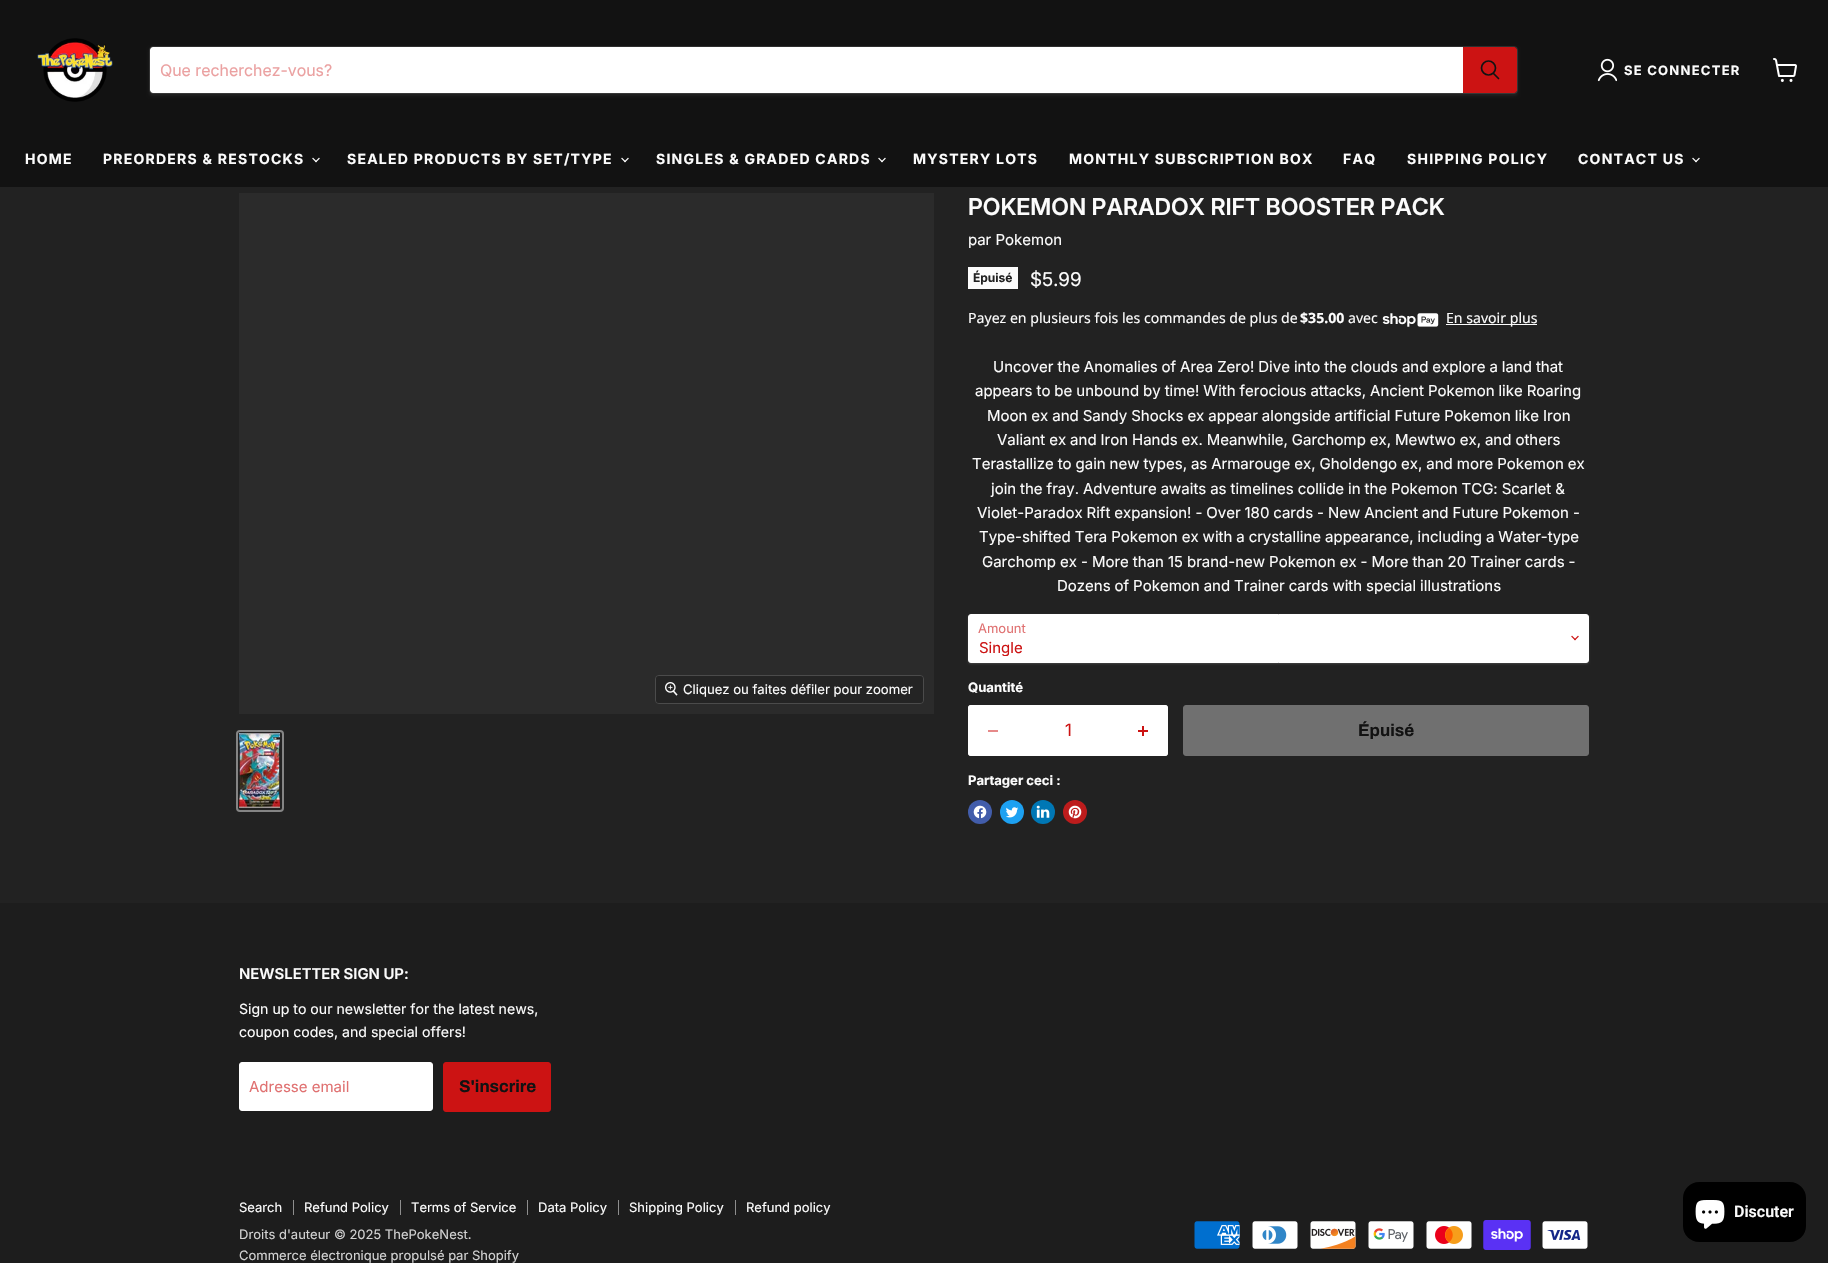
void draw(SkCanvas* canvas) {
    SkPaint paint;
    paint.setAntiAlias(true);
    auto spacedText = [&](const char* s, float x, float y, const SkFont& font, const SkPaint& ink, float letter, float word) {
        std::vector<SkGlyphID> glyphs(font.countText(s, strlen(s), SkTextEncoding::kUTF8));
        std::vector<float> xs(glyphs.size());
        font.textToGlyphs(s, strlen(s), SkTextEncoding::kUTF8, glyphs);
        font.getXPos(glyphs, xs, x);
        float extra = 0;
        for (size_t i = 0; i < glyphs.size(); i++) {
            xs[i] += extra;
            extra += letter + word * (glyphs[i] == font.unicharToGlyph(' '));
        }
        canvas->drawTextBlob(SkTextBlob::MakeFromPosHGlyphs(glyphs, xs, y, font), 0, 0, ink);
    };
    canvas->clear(0xFF222222);
    paint.setColor(0xFF121212);
    canvas->drawRect(SkRect::MakeXYWH(0, 0, 1828, 187), paint);
    canvas->drawImageRect(SkImages::DeferredFromEncodedData(SkData::MakeFromFileName("img1.png")), SkRect::MakeXYWH(37, 38, 76, 64), SkSamplingOptions());
    paint.setColor(0x1C919191);
    paint.setMaskFilter(SkMaskFilter::MakeBlur(kNormal_SkBlurStyle, 1.5f));
    canvas->drawRoundRect(SkRect::MakeXYWH(149, 48, 1369, 48), 4, 4, paint);
    paint.setMaskFilter(nullptr);
    paint.setStyle(SkPaint::kStroke_Style);
    paint.setStrokeWidth(1);
    paint.setColor(0x33919191);
    canvas->drawRoundRect(SkRect::MakeXYWH(149.5f, 46.5f, 1368, 47), 3.5f, 3.5f, paint);
    paint.setStyle(SkPaint::kFill_Style);
    paint.setColor(0xFFFFFFFF);
    canvas->drawPath(SkPathBuilder().moveTo(153, 47).lineTo(1463, 47).lineTo(1463, 93).lineTo(153, 93).cubicTo(151.5f, 93, 150, 91.5f, 150, 90).lineTo(150, 50).cubicTo(150, 48.5f, 151.5f, 47, 153, 47).close().detach(), paint);
    SkFont font1(fontMgr->matchFamilyStyle("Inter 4", SkFontStyle::Normal()), 16);
    font1.setSubpixel(true);
    paint.setColor(0xFFEBA1A1);
    canvas->drawString("Que recherchez-vous?", 160, 76, font1, paint);
    paint.setColor(0xFFCC1313);
    canvas->drawPath(SkPathBuilder().moveTo(1463.5f, 47.5f).lineTo(1514, 47.5f).cubicTo(1515.5f, 47.5f, 1516.5f, 48.5f, 1516.5f, 50).lineTo(1516.5f, 90).cubicTo(1516.5f, 91.5f, 1515.5f, 92.5f, 1514, 92.5f).lineTo(1463.5f, 92.5f).close().detach(), paint);
    paint.setStyle(SkPaint::kStroke_Style);
    canvas->drawPath(SkPathBuilder().moveTo(1463.5f, 47.5f).lineTo(1514, 47.5f).cubicTo(1515.5f, 47.5f, 1516.5f, 48.5f, 1516.5f, 50).lineTo(1516.5f, 90).cubicTo(1516.5f, 91.5f, 1515.5f, 92.5f, 1514, 92.5f).lineTo(1463.5f, 92.5f).close().detach(), paint);
    paint.setStrokeWidth(1.7f);
    paint.setStrokeCap(SkPaint::kRound_Cap);
    paint.setColor(0xFF121212);
    canvas->drawPath(SkPathBuilder().moveTo(1498.5f, 78.5f).lineTo(1493.5f, 73.5f).detach(), paint);
    paint.setStrokeCap(SkPaint::kButt_Cap);
    canvas->drawCircle(1488.5f, 68, 7, paint);
    canvas->drawImageRect(SkImages::DeferredFromEncodedData(SkData::MakeFromFileName("img2.png")), SkRect::MakeXYWH(1597, 58, 20, 24), SkSamplingOptions());
    SkFont font2(fontMgr->matchFamilyStyle("Inter", SkFontStyle::Bold()), 13);
    font2.setSubpixel(true);
    paint.setStyle(SkPaint::kFill_Style);
    paint.setColor(0xFFFCFCFC);
    spacedText("SE CONNECTER", 1624, 75, font2, paint, 1.25f, 0);
    canvas->drawImageRect(SkImages::DeferredFromEncodedData(SkData::MakeFromFileName("img3.png")), SkRect::MakeXYWH(1773, 58, 24, 24), SkSamplingOptions());
    SkFont font3(fontMgr->matchFamilyStyle("Inter", SkFontStyle::Bold()), 14);
    font3.setSubpixel(true);
    spacedText("HOME", 25, 164, font3, paint, 1.25f, 0);
    spacedText("PREORDERS & RESTOCKS", 103, 164, font3, paint, 1.25f, 0);
    canvas->drawImageRect(SkImages::DeferredFromEncodedData(SkData::MakeFromFileName("img4.png")), SkRect::MakeXYWH(312, 157, 8, 6), SkSamplingOptions());
    spacedText("SEALED PRODUCTS BY SET/TYPE", 347, 164, font3, paint, 1.25f, 0);
    canvas->drawImageRect(SkImages::DeferredFromEncodedData(SkData::MakeFromFileName("img4.png")), SkRect::MakeXYWH(621, 157, 8, 6), SkSamplingOptions());
    spacedText("SINGLES & GRADED CARDS", 656, 164, font3, paint, 1.25f, 0);
    canvas->drawImageRect(SkImages::DeferredFromEncodedData(SkData::MakeFromFileName("img4.png")), SkRect::MakeXYWH(878, 157, 8, 6), SkSamplingOptions());
    spacedText("MYSTERY LOTS", 913, 164, font3, paint, 1.25f, 0);
    spacedText("MONTHLY SUBSCRIPTION BOX", 1069, 164, font3, paint, 1.25f, 0);
    spacedText("FAQ", 1343, 164, font3, paint, 1.25f, 0);
    spacedText("SHIPPING POLICY", 1407, 164, font3, paint, 1.25f, 0);
    spacedText("CONTACT US", 1578, 164, font3, paint, 1.25f, 0);
    canvas->drawImageRect(SkImages::DeferredFromEncodedData(SkData::MakeFromFileName("img4.png")), SkRect::MakeXYWH(1692, 157, 8, 6), SkSamplingOptions());
    paint.setColor(0xFF2B2B2B);
    canvas->drawRect(SkRect::MakeXYWH(239, 193, 695, 521), paint);
    paint.setStyle(SkPaint::kStroke_Style);
    paint.setStrokeWidth(1);
    paint.setColor(0xFF4B4B4B);
    canvas->drawRoundRect(SkRect::MakeXYWH(655.5f, 675.5f, 268, 28), 3.5f, 3.5f, paint);
    paint.setStyle(SkPaint::kFill_Style);
    paint.setColor(0xE6222222);
    canvas->drawRoundRect(SkRect::MakeXYWH(656, 676, 267, 27), 3, 3, paint);
    canvas->drawImageRect(SkImages::DeferredFromEncodedData(SkData::MakeFromFileName("img5.png")), SkRect::MakeXYWH(665, 682, 13, 14), SkSamplingOptions());
    SkFont font4(fontMgr->matchFamilyStyle("Inter", SkFontStyle::Normal()), 13.1f);
    font4.setSubpixel(true);
    paint.setColor(0xFFFCFCFC);
    canvas->drawString("Cliquez ou faites défiler pour zoomer", 683, 694, font4, paint);
    paint.setStyle(SkPaint::kStroke_Style);
    paint.setStrokeWidth(2);
    paint.setColor(0xFF858585);
    canvas->drawRoundRect(SkRect::MakeXYWH(237, 731, 46, 80), 3, 3, paint);
    canvas->drawImageRect(SkImages::DeferredFromEncodedData(SkData::MakeFromFileName("img6.png")), SkRect::MakeXYWH(239, 733, 41, 75), SkSamplingOptions());
    SkFont font5(fontMgr->matchFamilyStyle("Inter", SkFontStyle(600, SkFontStyle::kNormal_Width, SkFontStyle::kUpright_Slant)), 23.25f);
    font5.setSubpixel(true);
    paint.setStyle(SkPaint::kFill_Style);
    paint.setColor(0xFFFCFCFC);
    canvas->drawString("POKEMON PARADOX RIFT BOOSTER PACK", 968, 215, font5, paint);
    SkFont font6(fontMgr->matchFamilyStyle("Inter", SkFontStyle::Normal()), 15);
    font6.setSubpixel(true);
    canvas->drawString("par Pokemon", 968, 245, font6, paint);
    canvas->drawRect(SkRect::MakeXYWH(968, 267, 50, 22), paint);
    SkFont font7(fontMgr->matchFamilyStyle("Inter", SkFontStyle::Bold()), 12);
    font7.setSubpixel(true);
    paint.setColor(0xFF222222);
    canvas->drawString("Épuisé", 973, 282, font7, paint);
    SkFont font8(fontMgr->matchFamilyStyle("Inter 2", SkFontStyle::Normal()), 19);
    font8.setSubpixel(true);
    paint.setColor(0xFFFCFCFC);
    canvas->drawString("$5.99", 1030, 286, font8, paint);
    SkFont font9(fontMgr->matchFamilyStyle("Noto Sans", SkFontStyle::Normal()), 14.1f);
    font9.setSubpixel(true);
    canvas->drawString("Payez en plusieurs fois les commandes de plus de", 968, 323, font9, paint);
    SkFont font10(fontMgr->matchFamilyStyle("Noto Sans", SkFontStyle::Bold()), 14.1f);
    font10.setSubpixel(true);
    canvas->drawString("$35.00", 1300, 323, font10, paint);
    canvas->drawString("avec", 1348, 323, font9, paint);
    canvas->drawImageRect(SkImages::DeferredFromEncodedData(SkData::MakeFromFileName("img7.png")), SkRect::MakeXYWH(1382, 313, 57, 14), SkSamplingOptions());
    canvas->drawRect(SkRect::MakeXYWH(1446, 324, 91, 1), paint);
    canvas->drawString("En savoir plus", 1446, 323, font9, paint);
    spacedText("Uncover the Anomalies of Area Zero! Dive into the clouds and explore a land that", 993, 372, font6, paint, 0, -0.25f);
    spacedText("appears to be unbound by time! With ferocious attacks, Ancient Pokemon like Roaring", 975, 396, font6, paint, 0, -0.25f);
    spacedText("Moon ex and Sandy Shocks ex appear alongside artificial Future Pokemon like Iron", 987, 421, font6, paint, 0, -0.25f);
    spacedText("Valiant ex and Iron Hands ex. Meanwhile, Garchomp ex, Mewtwo ex, and others", 997, 445, font6, paint, 0, -0.25f);
    spacedText("Terastallize to gain new types, as Armarouge ex, Gholdengo ex, and more Pokemon ex", 972, 469, font6, paint, 0, -0.25f);
    spacedText("join the fray. Adventure awaits as timelines collide in the Pokemon TCG: Scarlet &", 991, 494, font6, paint, 0, -0.25f);
    spacedText("Violet-Paradox Rift expansion! - Over 180 cards - New Ancient and Future Pokemon -", 977, 518, font6, paint, 0, -0.25f);
    spacedText("Type-shifted Tera Pokemon ex with a crystalline appearance, including a Water-type", 979, 542, font6, paint, 0, -0.25f);
    spacedText("Garchomp ex - More than 15 brand-new Pokemon ex - More than 20 Trainer cards -", 982, 567, font6, paint, 0, -0.2f);
    spacedText("Dozens of Pokemon and Trainer cards with special illustrations", 1057, 591, font6, paint, 0, -0.25f);
    paint.setColor(0x26FFFFFF);
    paint.setMaskFilter(SkMaskFilter::MakeBlur(kNormal_SkBlurStyle, 1));
    canvas->drawRoundRect(SkRect::MakeXYWH(968, 615, 621, 49), 3, 3, paint);
    paint.setMaskFilter(nullptr);
    paint.setColor(0xFFFFFFFF);
    canvas->drawRoundRect(SkRect::MakeXYWH(968.5f, 614.5f, 620, 48), 2.5f, 2.5f, paint);
    paint.setStyle(SkPaint::kStroke_Style);
    paint.setStrokeWidth(1);
    canvas->drawRoundRect(SkRect::MakeXYWH(968.5f, 614.5f, 620, 48), 2.5f, 2.5f, paint);
    SkFont font11(fontMgr->matchFamilyStyle("Inter", SkFontStyle::Normal()), 13);
    font11.setSubpixel(true);
    paint.setStyle(SkPaint::kFill_Style);
    paint.setColor(0xFFE07171);
    canvas->drawString("Amount", 978, 633, font11, paint);
    canvas->drawImageRect(SkImages::DeferredFromEncodedData(SkData::MakeFromFileName("img8.png")), SkRect::MakeXYWH(1571, 635, 8, 6), SkSamplingOptions());
    canvas->save();
    canvas->clipRect(SkRect::MakeXYWH(979, 639, 581, 17));
    paint.setColor(0xFFCC1313);
    canvas->drawString("Single", 979, 653, font6, paint);
    canvas->restore();
    SkFont font12(fontMgr->matchFamilyStyle("Inter", SkFontStyle::Bold()), 13.1f);
    font12.setSubpixel(true);
    paint.setColor(0xFFFCFCFC);
    canvas->drawString("Quantité", 968, 692, font12, paint);
    paint.setColor(0xFFFFFFFF);
    canvas->drawPath(SkPathBuilder().moveTo(971, 705).lineTo(1017, 705).lineTo(1017, 756).lineTo(971, 756).cubicTo(969.5f, 756, 968, 754.5f, 968, 753).lineTo(968, 708).cubicTo(968, 706.5f, 969.5f, 705, 971, 705).close().detach(), paint);
    canvas->drawPath(SkPathBuilder(SkPathFillType::kEvenOdd).moveTo(971, 705).lineTo(1017, 705).lineTo(1017, 756).lineTo(971, 756).cubicTo(969, 756, 968, 755, 968, 753).lineTo(968, 708).cubicTo(968, 706, 969, 705, 971, 705).close().moveTo(971, 706).lineTo(1017, 706).lineTo(1017, 755).lineTo(979, 755).cubicTo(975, 755, 969, 756, 969, 753).lineTo(969, 707).close().detach(), paint);
    paint.setColor(0xFFE68989);
    canvas->drawRect(SkRect::MakeXYWH(988, 730, 10, 2), paint);
    paint.setColor(0xFFFFFFFF);
    canvas->drawRect(SkRect::MakeXYWH(1017, 705, 103, 51), paint);
    SkFont font13(fontMgr->matchFamilyStyle("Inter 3", SkFontStyle::Normal()), 17);
    font13.setSubpixel(true);
    paint.setColor(0xFFCC1313);
    canvas->drawString("1", 1065, 736, font13, paint);
    paint.setColor(0xFFFFFFFF);
    canvas->drawPath(SkPathBuilder().moveTo(1120, 705).lineTo(1165, 705).cubicTo(1166.5f, 705, 1168, 706.5f, 1168, 708).lineTo(1168, 753).cubicTo(1168, 754.5f, 1166.5f, 756, 1165, 756).lineTo(1120, 756).close().detach(), paint);
    canvas->drawPath(SkPathBuilder(SkPathFillType::kEvenOdd).moveTo(1120, 705).lineTo(1165, 705).cubicTo(1167, 705, 1168, 706, 1168, 708).lineTo(1168, 753).cubicTo(1168, 755, 1167, 756, 1165, 756).lineTo(1120, 756).close().moveTo(1120, 706).lineTo(1165, 706).cubicTo(1166, 706, 1167, 707, 1167, 708).lineTo(1167, 753).cubicTo(1167, 754, 1166, 755, 1165, 755).lineTo(1120, 755).close().detach(), paint);
    canvas->drawImageRect(SkImages::DeferredFromEncodedData(SkData::MakeFromFileName("img9.png")), SkRect::MakeXYWH(1138, 726, 10, 10), SkSamplingOptions());
    paint.setColor(0xFF707070);
    canvas->drawRoundRect(SkRect::MakeXYWH(1183.5f, 705.5f, 405, 50), 2.5f, 2.5f, paint);
    paint.setStyle(SkPaint::kStroke_Style);
    canvas->drawRoundRect(SkRect::MakeXYWH(1183.5f, 705.5f, 405, 50), 2.5f, 2.5f, paint);
    SkFont font14(fontMgr->matchFamilyStyle("Archivo", SkFontStyle::Bold()), 17);
    font14.setSubpixel(true);
    paint.setStyle(SkPaint::kFill_Style);
    paint.setColor(0xFF121212);
    canvas->drawString("Épuisé", 1358, 736, font14, paint);
    paint.setColor(0xFFFCFCFC);
    canvas->drawString("Partager ceci :", 968, 785, font12, paint);
    paint.setColor(0xFF425DAB);
    canvas->drawCircle(980, 812, 12, paint);
    canvas->drawImageRect(SkImages::DeferredFromEncodedData(SkData::MakeFromFileName("img10.png")), SkRect::MakeXYWH(973, 805, 14, 14), SkSamplingOptions());
    paint.setColor(0xFF1DA1F2);
    canvas->drawCircle(1012, 812, 12, paint);
    canvas->drawImageRect(SkImages::DeferredFromEncodedData(SkData::MakeFromFileName("img11.png")), SkRect::MakeXYWH(1006, 807, 13, 11), SkSamplingOptions());
    paint.setColor(0xFF0077B5);
    canvas->drawCircle(1043, 812, 12, paint);
    canvas->drawImageRect(SkImages::DeferredFromEncodedData(SkData::MakeFromFileName("img12.png")), SkRect::MakeXYWH(1036, 805, 14, 13), SkSamplingOptions());
    paint.setColor(0xFFBD1C1C);
    canvas->drawCircle(1075, 812, 12, paint);
    canvas->drawImageRect(SkImages::DeferredFromEncodedData(SkData::MakeFromFileName("img13.png")), SkRect::MakeXYWH(1068, 805, 14, 14), SkSamplingOptions());
    paint.setColor(0xFF1D1D1D);
    canvas->drawRect(SkRect::MakeXYWH(0, 903, 1828, 360), paint);
    SkFont font15(fontMgr->matchFamilyStyle("Inter 2", SkFontStyle(600, SkFontStyle::kNormal_Width, SkFontStyle::kUpright_Slant)), 14.9f);
    font15.setSubpixel(true);
    paint.setColor(0xFFFCFCFC);
    spacedText("NEWSLETTER SIGN UP:", 239, 979, font15, paint, 0, -0.25f);
    SkFont font16(fontMgr->matchFamilyStyle("Inter", SkFontStyle::Normal()), 14.1f);
    font16.setSubpixel(true);
    canvas->drawString("Sign up to our newsletter for the latest news,", 239, 1014, font16, paint);
    canvas->drawString("coupon codes, and special offers!", 239, 1037, font16, paint);
    paint.setColor(0xFFFFFFFF);
    canvas->drawRoundRect(SkRect::MakeXYWH(239.5f, 1062.5f, 193, 48), 2.5f, 2.5f, paint);
    paint.setStyle(SkPaint::kStroke_Style);
    canvas->drawRoundRect(SkRect::MakeXYWH(239.5f, 1062.5f, 193, 48), 2.5f, 2.5f, paint);
    paint.setStyle(SkPaint::kFill_Style);
    paint.setColor(0xFFE07171);
    canvas->drawString("Adresse email", 249, 1092, font6, paint);
    paint.setColor(0xFFCC1313);
    canvas->drawRoundRect(SkRect::MakeXYWH(443.5f, 1062.5f, 107, 49), 2.5f, 2.5f, paint);
    paint.setStyle(SkPaint::kStroke_Style);
    canvas->drawRoundRect(SkRect::MakeXYWH(443.5f, 1062.5f, 107, 49), 2.5f, 2.5f, paint);
    paint.setStyle(SkPaint::kFill_Style);
    paint.setColor(0xFF121212);
    canvas->drawString("S'inscrire", 459, 1092, font14, paint);
    paint.setColor(0xFF8E8E8E);
    canvas->drawRect(SkRect::MakeXYWH(293, 1200, 1, 15), paint);
    paint.setColor(0xFFFCFCFC);
    canvas->drawString("Search", 239, 1212, font11, paint);
    paint.setColor(0xFF8E8E8E);
    canvas->drawRect(SkRect::MakeXYWH(400, 1200, 1, 15), paint);
    paint.setColor(0xFFFCFCFC);
    canvas->drawString("Refund Policy", 304, 1212, font11, paint);
    paint.setColor(0xFF8E8E8E);
    canvas->drawRect(SkRect::MakeXYWH(527, 1200, 1, 15), paint);
    paint.setColor(0xFFFCFCFC);
    canvas->drawString("Terms of Service", 411, 1212, font11, paint);
    paint.setColor(0xFF8E8E8E);
    canvas->drawRect(SkRect::MakeXYWH(618, 1200, 1, 15), paint);
    paint.setColor(0xFFFCFCFC);
    canvas->drawString("Data Policy", 538, 1212, font11, paint);
    paint.setColor(0xFF8E8E8E);
    canvas->drawRect(SkRect::MakeXYWH(735, 1200, 1, 15), paint);
    paint.setColor(0xFFFCFCFC);
    canvas->drawString("Shipping Policy", 629, 1212, font11, paint);
    canvas->drawString("Refund policy", 746, 1212, font11, paint);
    paint.setColor(0xFFD2D2D2);
    canvas->drawString("Droits d'auteur © 2025 ThePokeNest.", 239, 1239, font11, paint);
    canvas->drawString("Commerce électronique propulsé par Shopify", 239, 1260, font11, paint);
    canvas->drawImageRect(SkImages::DeferredFromEncodedData(SkData::MakeFromFileName("img14.png")), SkRect::MakeXYWH(1194, 1221, 46, 28), SkSamplingOptions());
    canvas->drawImageRect(SkImages::DeferredFromEncodedData(SkData::MakeFromFileName("img15.png")), SkRect::MakeXYWH(1252, 1221, 46, 28), SkSamplingOptions());
    canvas->drawImageRect(SkImages::DeferredFromEncodedData(SkData::MakeFromFileName("img16.png")), SkRect::MakeXYWH(1310, 1221, 46, 28), SkSamplingOptions());
    canvas->drawImageRect(SkImages::DeferredFromEncodedData(SkData::MakeFromFileName("img17.png")), SkRect::MakeXYWH(1368, 1221, 46, 28), SkSamplingOptions());
    canvas->drawImageRect(SkImages::DeferredFromEncodedData(SkData::MakeFromFileName("img18.png")), SkRect::MakeXYWH(1426, 1221, 46, 28), SkSamplingOptions());
    canvas->drawImageRect(SkImages::DeferredFromEncodedData(SkData::MakeFromFileName("img19.png")), SkRect::MakeXYWH(1483, 1220, 48, 30), SkSamplingOptions());
    canvas->drawImageRect(SkImages::DeferredFromEncodedData(SkData::MakeFromFileName("img20.png")), SkRect::MakeXYWH(1542, 1221, 46, 28), SkSamplingOptions());
    paint.setColor(0xFF000000);
    canvas->drawRoundRect(SkRect::MakeXYWH(1683, 1182, 123, 60), 16, 16, paint);
    canvas->drawImageRect(SkImages::DeferredFromEncodedData(SkData::MakeFromFileName("img21.png")), SkRect::MakeXYWH(1695, 1200, 30, 29), SkSamplingOptions());
    SkFont font17(fontMgr->matchFamilyStyle("Roboto", SkFontStyle(600, SkFontStyle::kNormal_Width, SkFontStyle::kUpright_Slant)), 16);
    font17.setSubpixel(true);
    paint.setColor(0xFFFCFCFC);
    canvas->drawString("Discuter", 1734, 1217, font17, paint);
}
